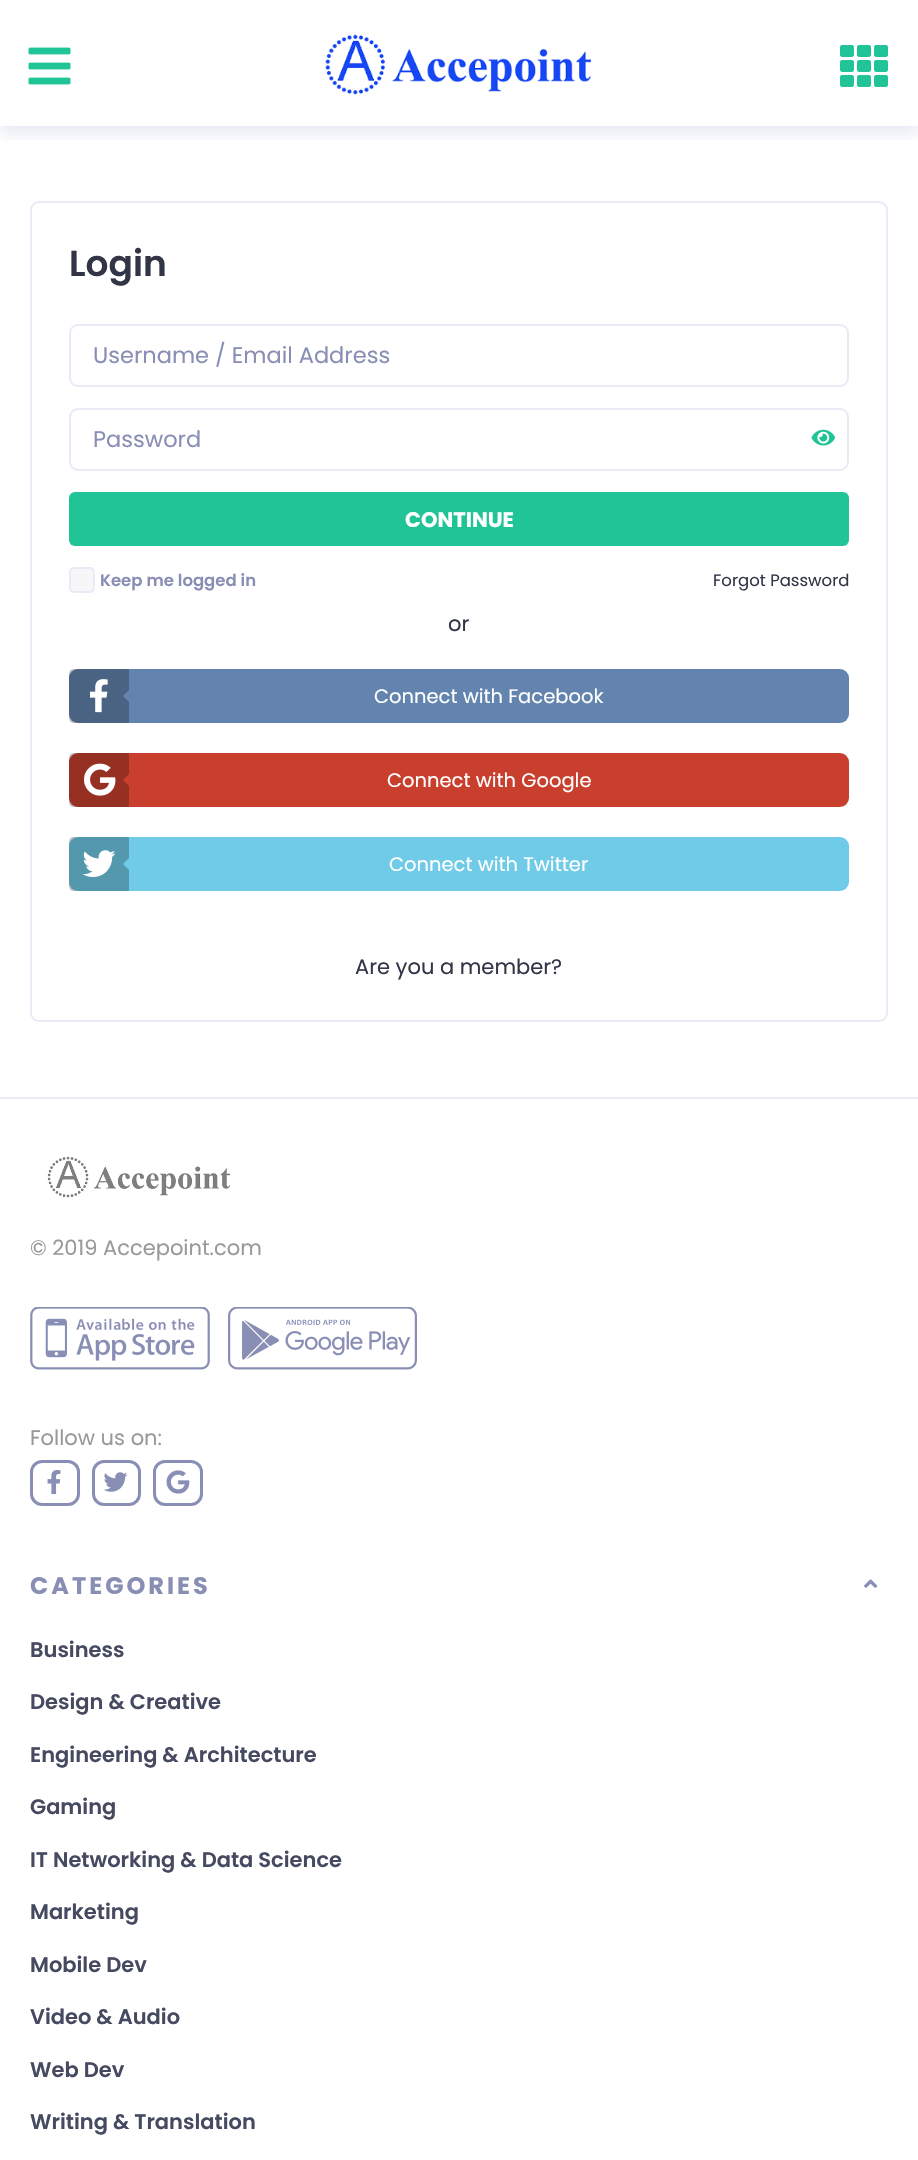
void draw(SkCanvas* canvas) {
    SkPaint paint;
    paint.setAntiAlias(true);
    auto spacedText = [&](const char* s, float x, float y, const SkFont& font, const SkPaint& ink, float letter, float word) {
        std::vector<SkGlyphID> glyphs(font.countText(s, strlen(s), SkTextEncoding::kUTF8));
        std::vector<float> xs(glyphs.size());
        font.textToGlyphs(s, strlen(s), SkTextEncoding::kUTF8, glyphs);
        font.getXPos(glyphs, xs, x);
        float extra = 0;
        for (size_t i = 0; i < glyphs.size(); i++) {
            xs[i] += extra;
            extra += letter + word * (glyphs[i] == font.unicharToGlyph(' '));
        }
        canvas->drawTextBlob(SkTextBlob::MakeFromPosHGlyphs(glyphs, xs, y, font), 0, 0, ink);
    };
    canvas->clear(0xFFFFFFFF);
    canvas->save();
    canvas->clipRect(SkRect::MakeXYWH(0, 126, 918, 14));
    paint.setColor(0x1A121C90);
    paint.setMaskFilter(SkMaskFilter::MakeBlur(kNormal_SkBlurStyle, 7.5f));
    canvas->drawRect(SkRect::MakeXYWH(0, 8, 918, 126), paint);
    paint.setMaskFilter(nullptr);
    canvas->restore();
    canvas->drawImageRect(SkImages::DeferredFromEncodedData(SkData::MakeFromFileName("img1.png")), SkRect::MakeXYWH(28, 47, 43, 38), SkSamplingOptions());
    canvas->drawImageRect(SkImages::DeferredFromEncodedData(SkData::MakeFromFileName("img2.png")), SkRect::MakeXYWH(325, 34, 266, 61), SkSamplingOptions());
    canvas->drawImageRect(SkImages::DeferredFromEncodedData(SkData::MakeFromFileName("img3.png")), SkRect::MakeXYWH(840, 45, 48, 42), SkSamplingOptions());
    paint.setStyle(SkPaint::kStroke_Style);
    paint.setStrokeWidth(2);
    paint.setColor(0xFFE8EBF6);
    canvas->drawRoundRect(SkRect::MakeXYWH(31, 202, 856, 819), 8, 8, paint);
    SkFont font1(fontMgr->matchFamilyStyle("Poppins", SkFontStyle(600, SkFontStyle::kNormal_Width, SkFontStyle::kUpright_Slant)), 36);
    font1.setSubpixel(true);
    paint.setStyle(SkPaint::kFill_Style);
    paint.setColor(0xFF313546);
    canvas->drawString("Login", 69, 276, font1, paint);
    paint.setStyle(SkPaint::kStroke_Style);
    paint.setColor(0xFFE8EBF6);
    canvas->drawRoundRect(SkRect::MakeXYWH(70, 325, 778, 61), 8, 8, paint);
    SkFont font2(fontMgr->matchFamilyStyle("Poppins", SkFontStyle::Normal()), 22.5f);
    font2.setSubpixel(true);
    paint.setStyle(SkPaint::kFill_Style);
    paint.setColor(0xFF898EB4);
    canvas->drawString("Username / Email Address", 93, 363, font2, paint);
    paint.setStyle(SkPaint::kStroke_Style);
    paint.setColor(0xFFE8EBF6);
    canvas->drawRoundRect(SkRect::MakeXYWH(70, 409, 778, 61), 8, 8, paint);
    paint.setStyle(SkPaint::kFill_Style);
    paint.setColor(0xFF898EB4);
    canvas->drawString("Password", 93, 447, font2, paint);
    canvas->drawImageRect(SkImages::DeferredFromEncodedData(SkData::MakeFromFileName("img4.png")), SkRect::MakeXYWH(811, 429, 25, 17), SkSamplingOptions());
    paint.setColor(0xFF20C497);
    canvas->drawRoundRect(SkRect::MakeXYWH(69, 492, 780, 54), 6, 6, paint);
    SkFont font3(fontMgr->matchFamilyStyle("Poppins", SkFontStyle::Bold()), 21);
    font3.setSubpixel(true);
    paint.setColor(0xFFFFFFFF);
    canvas->drawString("CONTINUE", 405, 527, font3, paint);
    paint.setColor(0xFFF7F7F7);
    canvas->drawRoundRect(SkRect::MakeXYWH(70, 568, 24, 24), 4, 4, paint);
    paint.setStyle(SkPaint::kStroke_Style);
    paint.setColor(0xFFE8EBF6);
    canvas->drawRoundRect(SkRect::MakeXYWH(70, 568, 24, 24), 4, 4, paint);
    SkFont font4(fontMgr->matchFamilyStyle("Poppins", SkFontStyle(600, SkFontStyle::kNormal_Width, SkFontStyle::kUpright_Slant)), 16.5f);
    font4.setSubpixel(true);
    paint.setStyle(SkPaint::kFill_Style);
    paint.setColor(0xFF898EB4);
    canvas->drawString("Keep me logged in", 100, 586, font4, paint);
    SkFont font5(fontMgr->matchFamilyStyle("Poppins", SkFontStyle::Normal()), 16.5f);
    font5.setSubpixel(true);
    paint.setColor(0xFF313546);
    canvas->drawString("Forgot Password", 713, 586, font5, paint);
    SkFont font6(fontMgr->matchFamilyStyle("Poppins", SkFontStyle::Normal()), 21);
    font6.setSubpixel(true);
    canvas->drawString("or", 448, 631, font6, paint);
    paint.setColor(0xFF6284AE);
    canvas->drawRoundRect(SkRect::MakeXYWH(69, 669, 780, 54), 9, 9, paint);
    paint.setColor(0x40000000);
    canvas->drawPath(SkPathBuilder().moveTo(74, 669).lineTo(129, 669).lineTo(129, 723).lineTo(74, 723).cubicTo(71, 723, 69, 721, 69, 718).lineTo(69, 674).cubicTo(69, 671, 71, 669, 74, 669).close().detach(), paint);
    canvas->drawImageRect(SkImages::DeferredFromEncodedData(SkData::MakeFromFileName("img5.png")), SkRect::MakeXYWH(90, 679, 18, 34), SkSamplingOptions());
    SkFont font7(fontMgr->matchFamilyStyle("Poppins", SkFontStyle::Normal()), 19.5f);
    font7.setSubpixel(true);
    paint.setColor(0xFFFFFFFF);
    canvas->drawString("Connect with Facebook", 374, 703, font7, paint);
    paint.setColor(0xFF6284AE);
    canvas->drawPath(SkPathBuilder().moveTo(129, 690).lineTo(129, 702).lineTo(123, 696).close().detach(), paint);
    paint.setColor(0xFFC83F2E);
    canvas->drawRoundRect(SkRect::MakeXYWH(69, 753, 780, 54), 9, 9, paint);
    paint.setColor(0x40000000);
    canvas->drawPath(SkPathBuilder().moveTo(74, 753).lineTo(129, 753).lineTo(129, 807).lineTo(74, 807).cubicTo(71, 807, 69, 805, 69, 802).lineTo(69, 758).cubicTo(69, 755, 71, 753, 74, 753).close().detach(), paint);
    canvas->drawImageRect(SkImages::DeferredFromEncodedData(SkData::MakeFromFileName("img6.png")), SkRect::MakeXYWH(84, 763, 32, 33), SkSamplingOptions());
    paint.setColor(0xFFFFFFFF);
    canvas->drawString("Connect with Google", 387, 787, font7, paint);
    paint.setColor(0xFFC83F2E);
    canvas->drawPath(SkPathBuilder().moveTo(129, 774).lineTo(129, 786).lineTo(123, 780).close().detach(), paint);
    paint.setColor(0xFF70CBE9);
    canvas->drawRoundRect(SkRect::MakeXYWH(69, 837, 780, 54), 9, 9, paint);
    paint.setColor(0x40000000);
    canvas->drawPath(SkPathBuilder().moveTo(74, 837).lineTo(129, 837).lineTo(129, 891).lineTo(74, 891).cubicTo(71, 891, 69, 889, 69, 886).lineTo(69, 842).cubicTo(69, 839, 71, 837, 74, 837).close().detach(), paint);
    canvas->drawImageRect(SkImages::DeferredFromEncodedData(SkData::MakeFromFileName("img7.png")), SkRect::MakeXYWH(82, 850, 34, 27), SkSamplingOptions());
    paint.setColor(0xFFFFFFFF);
    canvas->drawString("Connect with Twitter", 389, 871, font7, paint);
    paint.setColor(0xFF70CBE9);
    canvas->drawPath(SkPathBuilder().moveTo(129, 858).lineTo(129, 870).lineTo(123, 864).close().detach(), paint);
    paint.setColor(0xFF313546);
    canvas->drawString("Are you a member?", 355, 974, font6, paint);
    paint.setColor(0xFFE8EBF6);
    canvas->drawRect(SkRect::MakeXYWH(0, 1097, 918, 2), paint);
    canvas->drawImageRect(SkImages::DeferredFromEncodedData(SkData::MakeFromFileName("img8.png")), SkRect::MakeXYWH(47, 1156, 184, 42), SkSamplingOptions());
    paint.setColor(0xFF999999);
    canvas->drawString("© 2019 Accepoint.com", 30, 1255, font6, paint);
    canvas->drawImageRect(SkImages::DeferredFromEncodedData(SkData::MakeFromFileName("img9.png")), SkRect::MakeXYWH(30, 1307, 180, 63), SkSamplingOptions());
    canvas->drawImageRect(SkImages::DeferredFromEncodedData(SkData::MakeFromFileName("img10.png")), SkRect::MakeXYWH(228, 1307, 189, 63), SkSamplingOptions());
    canvas->drawString("Follow us on:", 30, 1445, font6, paint);
    paint.setStyle(SkPaint::kStroke_Style);
    paint.setStrokeWidth(3);
    paint.setColor(0xFF898EB4);
    canvas->drawRoundRect(SkRect::MakeXYWH(31.5f, 1461.5f, 47, 43), 10.5f, 10.5f, paint);
    canvas->drawImageRect(SkImages::DeferredFromEncodedData(SkData::MakeFromFileName("img11.png")), SkRect::MakeXYWH(47, 1470, 14, 24), SkSamplingOptions());
    canvas->drawRoundRect(SkRect::MakeXYWH(93.5f, 1461.5f, 46, 43), 10.5f, 10.5f, paint);
    canvas->drawImageRect(SkImages::DeferredFromEncodedData(SkData::MakeFromFileName("img12.png")), SkRect::MakeXYWH(103, 1472, 25, 20), SkSamplingOptions());
    canvas->drawRoundRect(SkRect::MakeXYWH(154.5f, 1461.5f, 47, 43), 10.5f, 10.5f, paint);
    canvas->drawImageRect(SkImages::DeferredFromEncodedData(SkData::MakeFromFileName("img13.png")), SkRect::MakeXYWH(166, 1470, 24, 24), SkSamplingOptions());
    SkFont font8(fontMgr->matchFamilyStyle("Poppins", SkFontStyle::Bold()), 24);
    font8.setSubpixel(true);
    paint.setStyle(SkPaint::kFill_Style);
    spacedText("CATEGORIES", 30, 1594, font8, paint, 3, 0);
    canvas->drawImageRect(SkImages::DeferredFromEncodedData(SkData::MakeFromFileName("img14.png")), SkRect::MakeXYWH(864, 1579, 14, 9), SkSamplingOptions());
    SkFont font9(fontMgr->matchFamilyStyle("Poppins", SkFontStyle(600, SkFontStyle::kNormal_Width, SkFontStyle::kUpright_Slant)), 21);
    font9.setSubpixel(true);
    paint.setColor(0xFF454A60);
    canvas->drawString("Business", 30, 1657, font9, paint);
    canvas->drawString("Design & Creative", 30, 1709, font9, paint);
    canvas->drawString("Engineering & Architecture", 30, 1762, font9, paint);
    canvas->drawString("Gaming", 30, 1814, font9, paint);
    canvas->drawString("IT Networking & Data Science", 30, 1867, font9, paint);
    canvas->drawString("Marketing", 30, 1919, font9, paint);
    canvas->drawString("Mobile Dev", 30, 1972, font9, paint);
    canvas->drawString("Video & Audio", 30, 2024, font9, paint);
    canvas->drawString("Web Dev", 30, 2077, font9, paint);
    canvas->drawString("Writing & Translation", 30, 2129, font9, paint);
}
